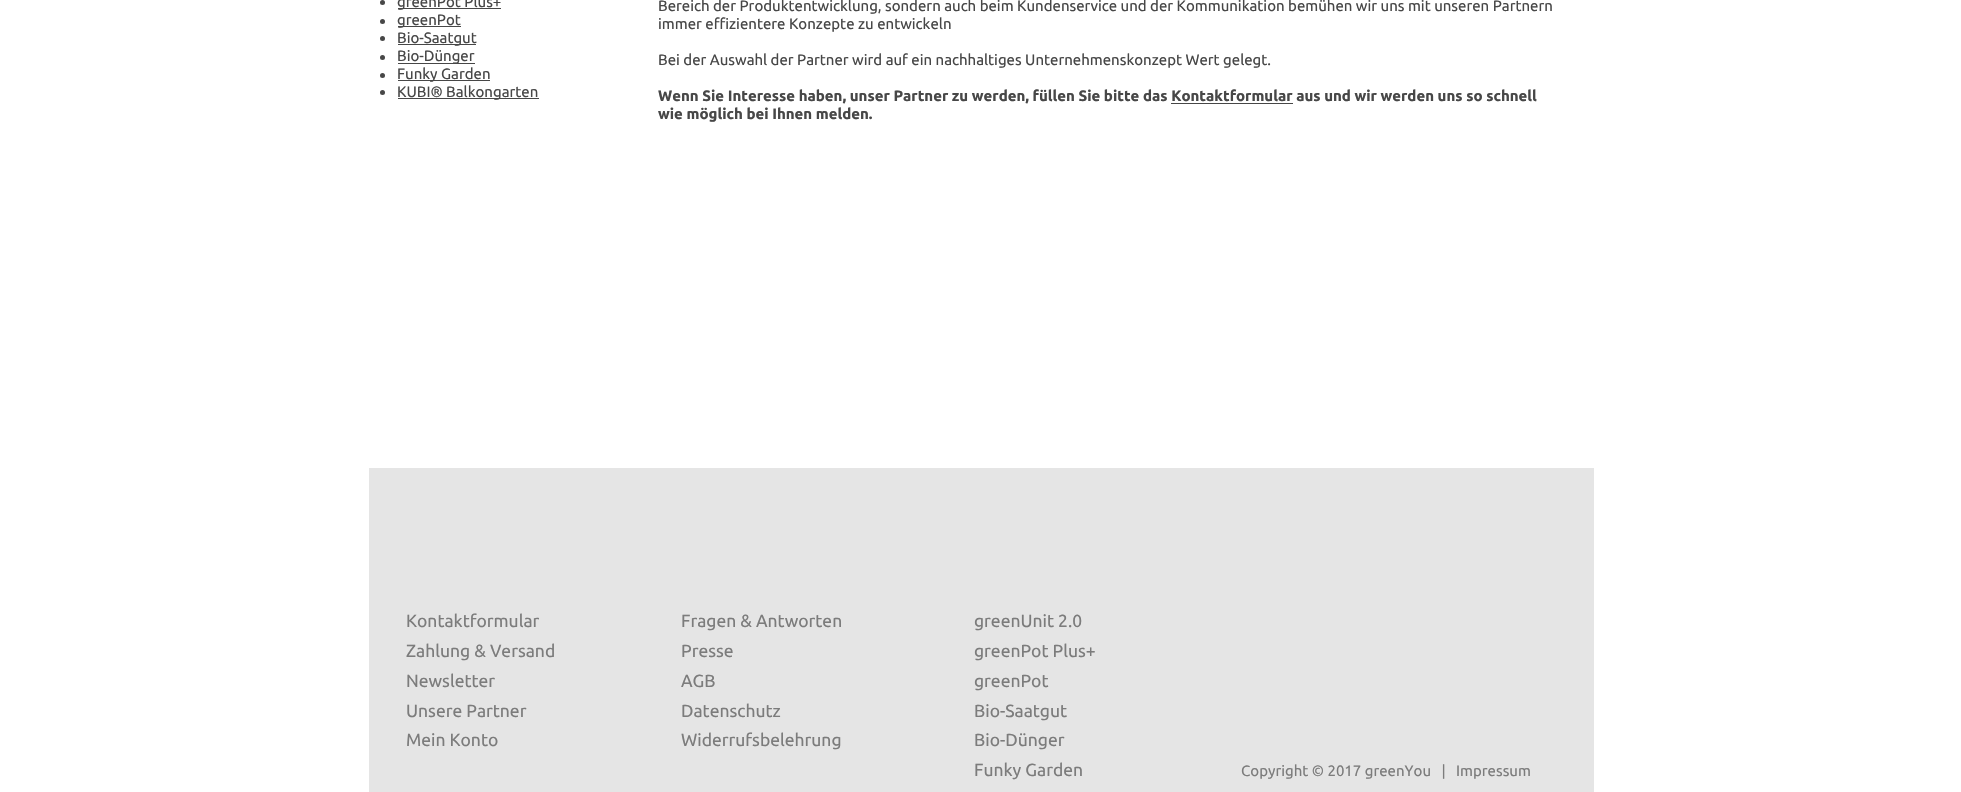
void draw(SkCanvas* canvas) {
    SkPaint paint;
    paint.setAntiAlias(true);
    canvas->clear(0xFFFFFFFF);
    paint.setColor(0xFF474747);
    canvas->drawCircle(382.5f, 2.5f, 2.5f, paint);
    canvas->drawRect(SkRect::MakeXYWH(398, 8, 103, 1), paint);
    SkFont font1(fontMgr->matchFamilyStyle("Ubuntu", SkFontStyle::Normal()), 15);
    font1.setSubpixel(true);
    canvas->drawString("greenPot Plus+", 397, 7, font1, paint);
    canvas->drawCircle(382.5f, 21.5f, 2.5f, paint);
    canvas->drawRect(SkRect::MakeXYWH(398, 26, 63, 1), paint);
    canvas->drawString("greenPot", 397, 25, font1, paint);
    canvas->drawCircle(382.5f, 38.5f, 2.5f, paint);
    canvas->drawRect(SkRect::MakeXYWH(398, 44, 78, 1), paint);
    canvas->drawString("Bio-Saatgut", 397, 43, font1, paint);
    canvas->drawCircle(382.5f, 57.5f, 2.5f, paint);
    canvas->drawRect(SkRect::MakeXYWH(398, 63, 77, 1), paint);
    canvas->drawString("Bio-Dünger", 397, 61, font1, paint);
    canvas->drawCircle(382.5f, 75.5f, 2.5f, paint);
    canvas->drawRect(SkRect::MakeXYWH(398, 80, 92, 1), paint);
    canvas->drawString("Funky Garden", 397, 79, font1, paint);
    canvas->drawCircle(382.5f, 92.5f, 2.5f, paint);
    canvas->drawRect(SkRect::MakeXYWH(398, 98, 141, 1), paint);
    canvas->drawString("KUBI® Balkongarten", 397, 97, font1, paint);
    canvas->drawString("Bereich der Produktentwicklung, sondern auch beim Kundenservice und der Kommunikation bemühen wir uns mit unseren Partnern", 658, 11, font1, paint);
    canvas->drawString("immer effizientere Konzepte zu entwickeln", 658, 29, font1, paint);
    canvas->drawString("Bei der Auswahl der Partner wird auf ein nachhaltiges Unternehmenskonzept Wert gelegt.", 658, 65, font1, paint);
    SkFont font2(fontMgr->matchFamilyStyle("Ubuntu", SkFontStyle::Bold()), 15);
    font2.setSubpixel(true);
    canvas->drawString("Wenn Sie Interesse haben, unser Partner zu werden, füllen Sie bitte das Kontaktformular aus und wir werden uns so schnell", 658, 101, font2, paint);
    canvas->drawRect(SkRect::MakeXYWH(1171, 103, 122, 1), paint);
    canvas->drawString("wie möglich bei Ihnen melden.", 658, 119, font2, paint);
    paint.setColor(0xFFE5E5E5);
    canvas->drawRect(SkRect::MakeXYWH(369, 468, 1225, 324), paint);
    SkFont font3(fontMgr->matchFamilyStyle("Ubuntu", SkFontStyle::Normal()), 17.5f);
    font3.setSubpixel(true);
    paint.setColor(0xFF7C7C7C);
    canvas->drawString("Kontaktformular", 406, 627, font3, paint);
    canvas->drawString("Zahlung & Versand", 406, 657, font3, paint);
    canvas->drawString("Newsletter", 406, 687, font3, paint);
    canvas->drawString("Unsere Partner", 406, 717, font3, paint);
    canvas->drawString("Mein Konto", 406, 746, font3, paint);
    canvas->drawString("Fragen & Antworten", 681, 627, font3, paint);
    canvas->drawString("Presse", 681, 657, font3, paint);
    canvas->drawString("AGB", 681, 687, font3, paint);
    canvas->drawString("Datenschutz", 681, 717, font3, paint);
    canvas->drawString("Widerrufsbelehrung", 681, 746, font3, paint);
    canvas->drawString("greenUnit 2.0", 974, 627, font3, paint);
    canvas->drawString("greenPot Plus+", 974, 657, font3, paint);
    canvas->drawString("greenPot", 974, 687, font3, paint);
    canvas->drawString("Bio-Saatgut", 974, 717, font3, paint);
    canvas->drawString("Bio-Dünger", 974, 746, font3, paint);
    canvas->drawString("Funky Garden", 974, 776, font3, paint);
    canvas->drawString("Copyright © 2017 greenYou   |", 1241, 776, font1, paint);
    canvas->drawString("Impressum", 1456, 776, font1, paint);
}
